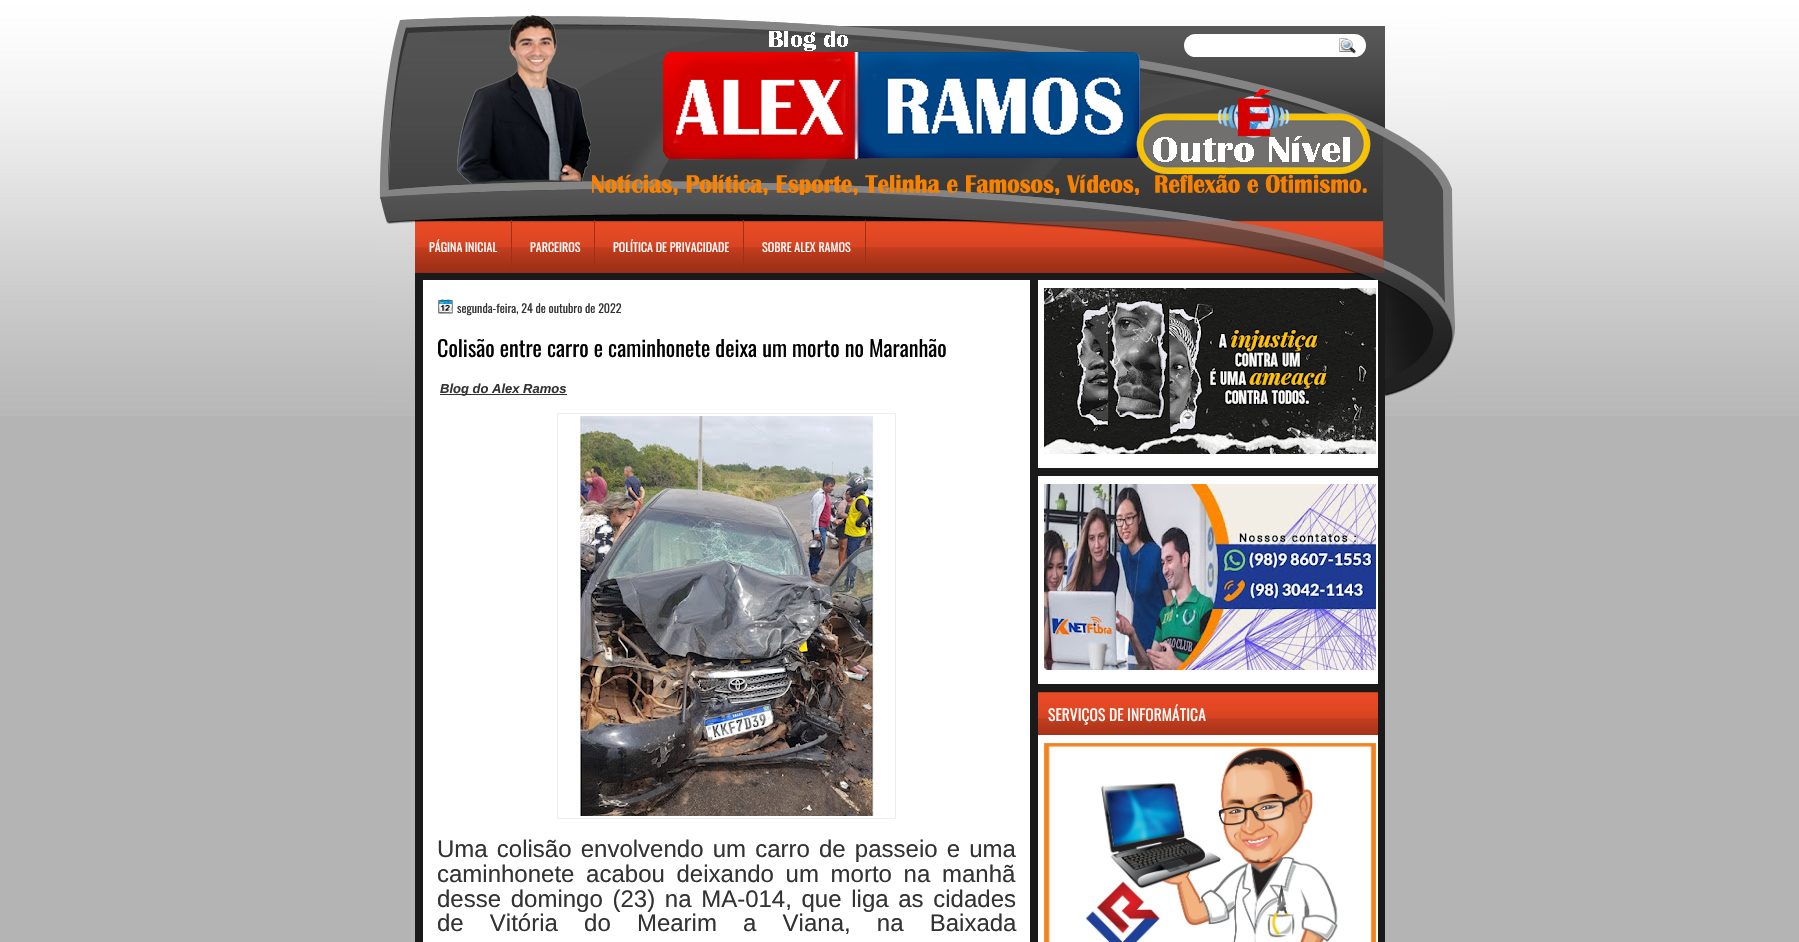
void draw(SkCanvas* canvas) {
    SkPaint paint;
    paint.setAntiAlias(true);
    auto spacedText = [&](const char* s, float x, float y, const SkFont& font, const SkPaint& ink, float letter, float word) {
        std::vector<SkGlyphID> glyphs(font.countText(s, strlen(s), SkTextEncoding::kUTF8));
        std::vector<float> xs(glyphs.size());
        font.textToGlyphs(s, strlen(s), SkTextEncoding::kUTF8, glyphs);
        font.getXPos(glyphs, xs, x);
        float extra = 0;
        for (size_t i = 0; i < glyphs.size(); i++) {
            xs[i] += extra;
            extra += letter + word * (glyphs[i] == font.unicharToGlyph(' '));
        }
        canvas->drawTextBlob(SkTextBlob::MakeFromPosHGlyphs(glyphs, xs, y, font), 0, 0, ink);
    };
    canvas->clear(0xFFB4B4B4);
    canvas->drawImageRect(SkImages::DeferredFromEncodedData(SkData::MakeFromFileName("img1.png")), SkRect::MakeXYWH(0, 0, 1799, 416), SkSamplingOptions());
    canvas->drawImageRect(SkImages::DeferredFromEncodedData(SkData::MakeFromFileName("img2.png")), SkRect::MakeXYWH(380, 16, 1064, 157), SkSamplingOptions());
    canvas->drawImageRect(SkImages::DeferredFromEncodedData(SkData::MakeFromFileName("img3.png")), SkRect::MakeXYWH(377, 173, 1078, 233), SkSamplingOptions());
    paint.setColor(0xFFFFFFFF);
    canvas->drawRoundRect(SkRect::MakeXYWH(1184, 34, 182, 23), 11.5f, 11.5f, paint);
    canvas->drawImageRect(SkImages::DeferredFromEncodedData(SkData::MakeFromFileName("img4.png")), SkRect::MakeXYWH(457, 15, 914, 180), SkSamplingOptions());
    canvas->drawImageRect(SkImages::DeferredFromEncodedData(SkData::MakeFromFileName("img5.png")), SkRect::MakeXYWH(1339, 38, 17, 16), SkSamplingOptions());
    SkFont font1(fontMgr->matchFamilyStyle("Oswald", SkFontStyle::Normal()), 12);
    font1.setSubpixel(true);
    canvas->drawString("PÁGINA INICIAL", 429, 252, font1, paint);
    paint.setColor(0xFF9F3017);
    canvas->drawRect(SkRect::MakeXYWH(511, 220, 1, 49), paint);
    paint.setColor(0xFFFFFFFF);
    canvas->drawString("PARCEIROS", 530, 252, font1, paint);
    paint.setColor(0xFF9F3017);
    canvas->drawRect(SkRect::MakeXYWH(594, 220, 1, 49), paint);
    paint.setColor(0xFFFFFFFF);
    canvas->drawString("POLÍTICA DE PRIVACIDADE", 613, 252, font1, paint);
    paint.setColor(0xFF9F3017);
    canvas->drawRect(SkRect::MakeXYWH(743, 220, 1, 49), paint);
    paint.setColor(0xFFFFFFFF);
    canvas->drawString("SOBRE ALEX RAMOS", 762, 252, font1, paint);
    paint.setColor(0xFF9F3017);
    canvas->drawRect(SkRect::MakeXYWH(865, 220, 1, 49), paint);
    paint.setColor(0xFF1A1A1A);
    canvas->drawRect(SkRect::MakeXYWH(415, 291, 970, 651), paint);
    paint.setColor(0xFFFFFFFF);
    canvas->drawRect(SkRect::MakeXYWH(423, 280, 607, 662), paint);
    canvas->drawImageRect(SkImages::DeferredFromEncodedData(SkData::MakeFromFileName("img6.png")), SkRect::MakeXYWH(438, 299, 15, 15), SkSamplingOptions());
    paint.setColor(0xFF333333);
    canvas->drawString("segunda-feira, 24 de outubro de 2022", 457, 313, font1, paint);
    SkFont font2(fontMgr->matchFamilyStyle("Oswald", SkFontStyle::Normal()), 22.1f);
    font2.setSubpixel(true);
    paint.setColor(0xFF000000);
    canvas->drawString("Colisão entre carro e caminhonete deixa um morto no Maranhão", 437, 357, font2, paint);
    paint.setColor(0xFF333333);
    canvas->drawRect(SkRect::MakeXYWH(440, 394, 127, 1), paint);
    SkFont font3(fontMgr->matchFamilyStyle("Liberation Sans", SkFontStyle::BoldItalic()), 13);
    font3.setSubpixel(true);
    canvas->drawString("Blog do Alex Ramos", 440, 393, font3, paint);
    paint.setStyle(SkPaint::kStroke_Style);
    paint.setStrokeWidth(1);
    paint.setColor(0xFFEEEEEE);
    canvas->drawRect(SkRect::MakeXYWH(557.5f, 413.5f, 338, 405), paint);
    canvas->drawImageRect(SkImages::DeferredFromEncodedData(SkData::MakeFromFileName("img7.png")), SkRect::MakeXYWH(576, 416, 304, 400), SkSamplingOptions());
    SkFont font4(fontMgr->matchFamilyStyle("Liberation Sans", SkFontStyle::Normal()), 24);
    font4.setSubpixel(true);
    paint.setStyle(SkPaint::kFill_Style);
    paint.setColor(0xFF333333);
    spacedText("Uma colisão envolvendo um carro de passeio e uma", 437, 857, font4, paint, 0, 2.5f);
    spacedText("caminhonete acabou deixando um morto na manhã", 437, 882, font4, paint, 0, 5);
    spacedText("desse domingo (23) na MA-014, que liga as cidades", 437, 907, font4, paint, 0, 3);
    spacedText("de Vitória do Mearim a Viana, na Baixada", 437, 931, font4, paint, 0, 19.5f);
    paint.setColor(0xFFFFFFFF);
    canvas->drawRect(SkRect::MakeXYWH(1038, 280, 340, 188), paint);
    canvas->drawImageRect(SkImages::DeferredFromEncodedData(SkData::MakeFromFileName("img8.png")), SkRect::MakeXYWH(1044, 288, 332, 166), SkSamplingOptions());
    canvas->drawRect(SkRect::MakeXYWH(1038, 476, 340, 208), paint);
    canvas->drawImageRect(SkImages::DeferredFromEncodedData(SkData::MakeFromFileName("img9.png")), SkRect::MakeXYWH(1044, 484, 332, 186), SkSamplingOptions());
    canvas->drawRect(SkRect::MakeXYWH(1038, 735, 340, 207), paint);
    canvas->drawImageRect(SkImages::DeferredFromEncodedData(SkData::MakeFromFileName("img10.png")), SkRect::MakeXYWH(1038, 692, 340, 43), SkSamplingOptions());
    SkFont font5(fontMgr->matchFamilyStyle("Oswald", SkFontStyle::Normal()), 15.6f);
    font5.setSubpixel(true);
    canvas->drawString("SERVIÇOS DE INFORMÁTICA", 1048, 721, font5, paint);
    canvas->drawImageRect(SkImages::DeferredFromEncodedData(SkData::MakeFromFileName("img11.png")), SkRect::MakeXYWH(1044, 743, 332, 199), SkSamplingOptions());
}
